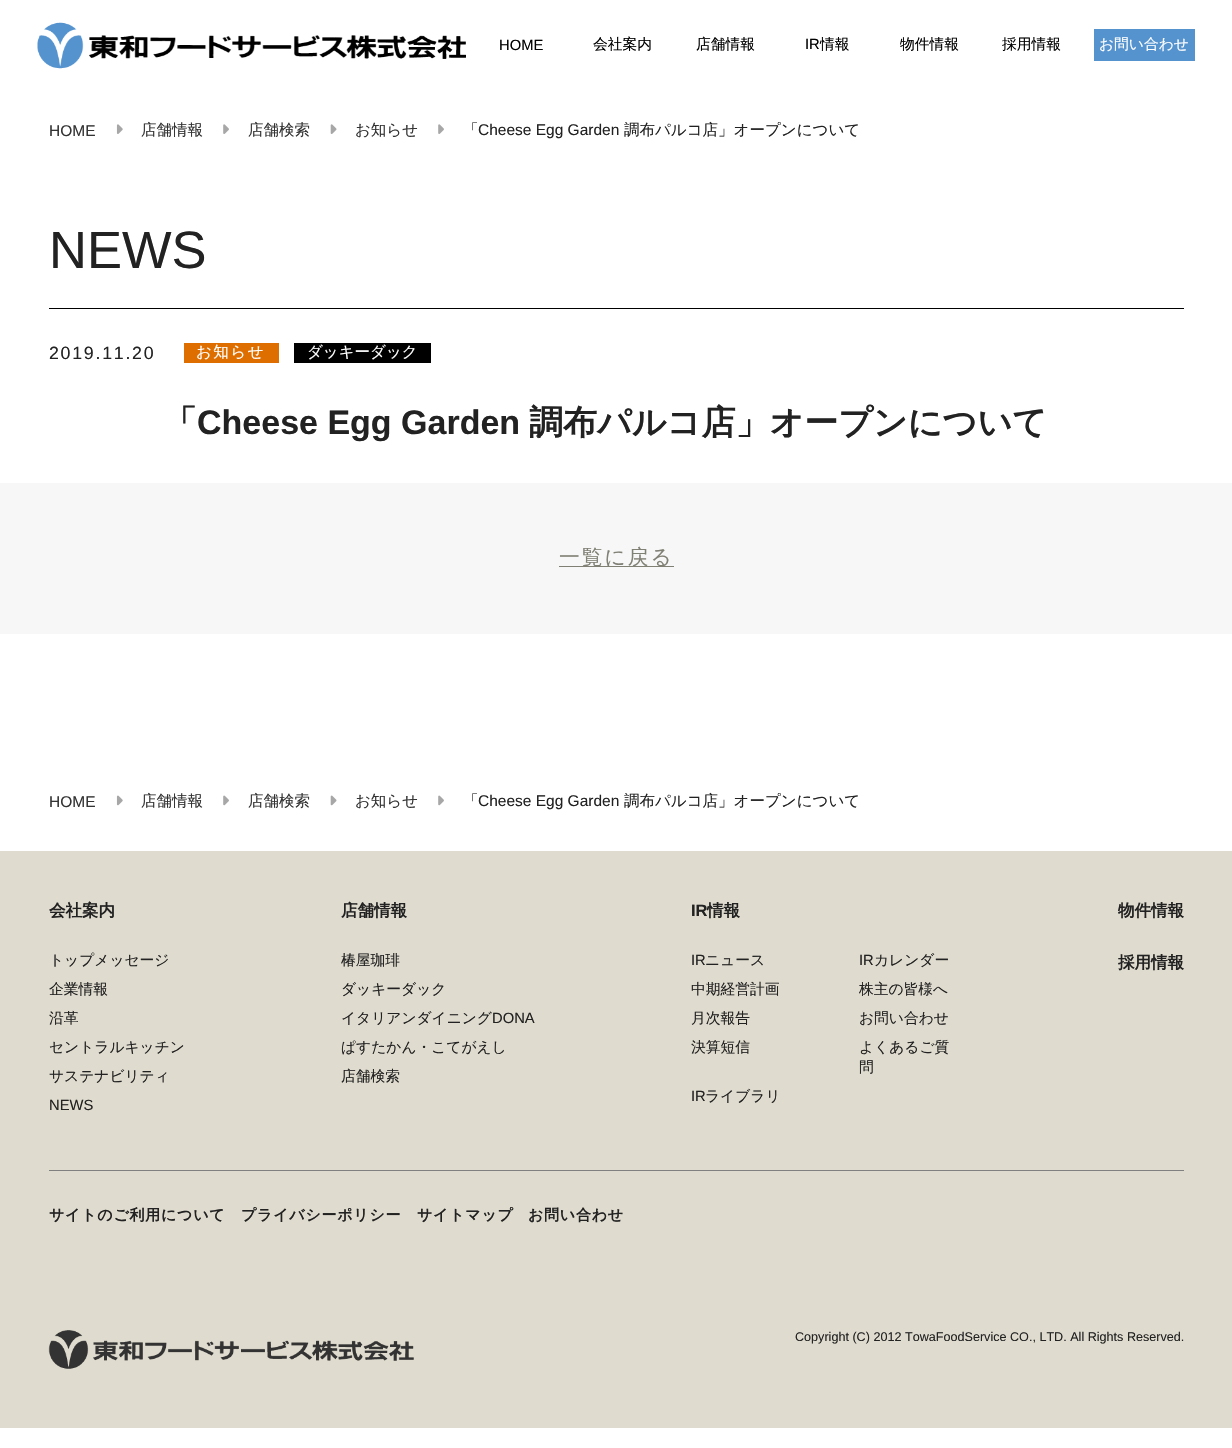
void draw(SkCanvas* canvas) {
    SkPaint paint;
    paint.setAntiAlias(true);
    auto spacedText = [&](const char* s, float x, float y, const SkFont& font, const SkPaint& ink, float letter, float word) {
        std::vector<SkGlyphID> glyphs(font.countText(s, strlen(s), SkTextEncoding::kUTF8));
        std::vector<float> xs(glyphs.size());
        font.textToGlyphs(s, strlen(s), SkTextEncoding::kUTF8, glyphs);
        font.getXPos(glyphs, xs, x);
        float extra = 0;
        for (size_t i = 0; i < glyphs.size(); i++) {
            xs[i] += extra;
            extra += letter + word * (glyphs[i] == font.unicharToGlyph(' '));
        }
        canvas->drawTextBlob(SkTextBlob::MakeFromPosHGlyphs(glyphs, xs, y, font), 0, 0, ink);
    };
    canvas->clear(0xFFFFFFFF);
    canvas->drawImageRect(SkImages::DeferredFromEncodedData(SkData::MakeFromFileName("img1.png")), SkRect::MakeXYWH(37, 22, 429, 47), SkSamplingOptions());
    SkFont font1(fontMgr->matchFamilyStyle("Liberation Sans", SkFontStyle::Normal()), 14.75f);
    font1.setSubpixel(true);
    paint.setColor(0xFF000000);
    canvas->drawString("HOME", 499, 50, font1, paint);
    SkFont font2(fontMgr->matchFamilyStyle("WenQuanYi Zen Hei", SkFontStyle(500, SkFontStyle::kNormal_Width, SkFontStyle::kUpright_Slant)), 14.75f);
    font2.setSubpixel(true);
    canvas->drawString("会社案内", 593, 49, font2, paint);
    canvas->drawString("店舗情報", 696, 49, font2, paint);
    canvas->drawString("IR", 805, 49, font1, paint);
    canvas->drawString("情報", 820, 49, font2, paint);
    canvas->drawString("物件情報", 900, 49, font2, paint);
    canvas->drawString("採用情報", 1002, 49, font2, paint);
    paint.setColor(0xFF5593CF);
    canvas->drawRect(SkRect::MakeXYWH(1094, 29, 101, 32), paint);
    paint.setColor(0xFFFFFFFF);
    canvas->drawString("お問い合わせ", 1099, 49, font2, paint);
    SkFont font3(fontMgr->matchFamilyStyle("Liberation Sans", SkFontStyle::Normal()), 15.5f);
    font3.setSubpixel(true);
    paint.setColor(0xFF333333);
    canvas->drawString("HOME", 49, 136, font3, paint);
    canvas->drawImageRect(SkImages::DeferredFromEncodedData(SkData::MakeFromFileName("img2.png")), SkRect::MakeXYWH(116, 124, 7, 10), SkSamplingOptions());
    SkFont font4(fontMgr->matchFamilyStyle("WenQuanYi Zen Hei", SkFontStyle(500, SkFontStyle::kNormal_Width, SkFontStyle::kUpright_Slant)), 15.5f);
    font4.setSubpixel(true);
    canvas->drawString("店舗情報", 141, 135, font4, paint);
    canvas->drawImageRect(SkImages::DeferredFromEncodedData(SkData::MakeFromFileName("img3.png")), SkRect::MakeXYWH(223, 124, 6, 10), SkSamplingOptions());
    canvas->drawString("店舗検索", 248, 135, font4, paint);
    canvas->drawImageRect(SkImages::DeferredFromEncodedData(SkData::MakeFromFileName("img4.png")), SkRect::MakeXYWH(330, 124, 7, 10), SkSamplingOptions());
    canvas->drawString("お知らせ", 355, 135, font4, paint);
    canvas->drawImageRect(SkImages::DeferredFromEncodedData(SkData::MakeFromFileName("img3.png")), SkRect::MakeXYWH(438, 124, 6, 10), SkSamplingOptions());
    paint.setColor(0xFF222222);
    canvas->drawString("「", 463, 135, font4, paint);
    canvas->drawString("Cheese Egg Garden", 478, 135, font3, paint);
    canvas->drawString("調布パルコ店」オープンについて", 624, 135, font4, paint);
    paint.setColor(0xFF000000);
    canvas->drawRect(SkRect::MakeXYWH(49, 308, 1135, 1), paint);
    SkFont font5(fontMgr->matchFamilyStyle("Liberation Sans", SkFontStyle::Normal()), 52.5f);
    font5.setSubpixel(true);
    paint.setColor(0xFF222222);
    canvas->drawString("NEWS", 49, 268, font5, paint);
    SkFont font6(fontMgr->matchFamilyStyle("Liberation Sans", SkFontStyle::Normal()), 17.75f);
    font6.setSubpixel(true);
    spacedText("2019.11.20", 49, 359, font6, paint, 1.75f, 0);
    paint.setColor(0xFFDE6E00);
    canvas->drawRect(SkRect::MakeXYWH(184, 343, 95, 20), paint);
    paint.setColor(0xFFFFFFFF);
    spacedText("お知らせ", 196, 357, font4, paint, 1.5f, 0);
    paint.setColor(0xFF000000);
    canvas->drawRect(SkRect::MakeXYWH(294, 343, 137, 20), paint);
    paint.setColor(0xFFFFFFFF);
    canvas->drawString("ダッキーダック", 307, 357, font4, paint);
    SkFont font7(fontMgr->matchFamilyStyle("WenQuanYi Zen Hei", SkFontStyle::Bold()), 34);
    font7.setSubpixel(true);
    paint.setColor(0xFF222222);
    canvas->drawString("「", 163, 434, font7, paint);
    SkFont font8(fontMgr->matchFamilyStyle("Liberation Sans", SkFontStyle::Bold()), 34);
    font8.setSubpixel(true);
    canvas->drawString("Cheese Egg Garden", 197, 434, font8, paint);
    canvas->drawString("調布パルコ店」オープンについて", 529, 434, font7, paint);
    paint.setColor(0xFFF7F7F7);
    canvas->drawRect(SkRect::MakeXYWH(0, 483, 1232, 151), paint);
    paint.setColor(0xFF808075);
    canvas->drawRect(SkRect::MakeXYWH(559, 566, 115, 1), paint);
    SkFont font9(fontMgr->matchFamilyStyle("WenQuanYi Zen Hei", SkFontStyle(500, SkFontStyle::kNormal_Width, SkFontStyle::kUpright_Slant)), 20.75f);
    font9.setSubpixel(true);
    spacedText("一覧に戻る", 559, 564, font9, paint, 2, 0);
    paint.setColor(0xFF333333);
    canvas->drawString("HOME", 49, 807, font3, paint);
    canvas->drawImageRect(SkImages::DeferredFromEncodedData(SkData::MakeFromFileName("img5.png")), SkRect::MakeXYWH(116, 795, 7, 11), SkSamplingOptions());
    canvas->drawString("店舗情報", 141, 806, font4, paint);
    canvas->drawImageRect(SkImages::DeferredFromEncodedData(SkData::MakeFromFileName("img6.png")), SkRect::MakeXYWH(223, 795, 6, 11), SkSamplingOptions());
    canvas->drawString("店舗検索", 248, 806, font4, paint);
    canvas->drawImageRect(SkImages::DeferredFromEncodedData(SkData::MakeFromFileName("img7.png")), SkRect::MakeXYWH(330, 795, 7, 11), SkSamplingOptions());
    canvas->drawString("お知らせ", 355, 806, font4, paint);
    canvas->drawImageRect(SkImages::DeferredFromEncodedData(SkData::MakeFromFileName("img6.png")), SkRect::MakeXYWH(438, 795, 6, 11), SkSamplingOptions());
    paint.setColor(0xFF222222);
    canvas->drawString("「", 463, 806, font4, paint);
    canvas->drawString("Cheese Egg Garden", 478, 806, font3, paint);
    canvas->drawString("調布パルコ店」オープンについて", 624, 806, font4, paint);
    paint.setColor(0xFFDFDBCE);
    canvas->drawRect(SkRect::MakeXYWH(0, 851, 1232, 577), paint);
    paint.setColor(0xFF808080);
    canvas->drawRect(SkRect::MakeXYWH(49, 1170, 1135, 1), paint);
    SkFont font10(fontMgr->matchFamilyStyle("WenQuanYi Zen Hei", SkFontStyle::Bold()), 16.5f);
    font10.setSubpixel(true);
    paint.setColor(0xFF222222);
    canvas->drawString("会社案内", 49, 916, font10, paint);
    canvas->drawString("トップメッセージ", 49, 965, font2, paint);
    canvas->drawString("企業情報", 49, 994, font2, paint);
    canvas->drawString("沿革", 49, 1023, font2, paint);
    canvas->drawString("セントラルキッチン", 49, 1052, font2, paint);
    canvas->drawString("サステナビリティ", 49, 1081, font2, paint);
    canvas->drawString("NEWS", 49, 1110, font1, paint);
    canvas->drawString("店舗情報", 341, 916, font10, paint);
    canvas->drawString("椿屋珈琲", 341, 965, font2, paint);
    canvas->drawString("ダッキーダック", 341, 994, font2, paint);
    canvas->drawString("イタリアンダイニング", 341, 1023, font2, paint);
    canvas->drawString("DONA", 492, 1023, font1, paint);
    canvas->drawString("ぱすたかん・こてがえし", 341, 1052, font2, paint);
    canvas->drawString("店舗検索", 341, 1081, font2, paint);
    SkFont font11(fontMgr->matchFamilyStyle("Liberation Sans", SkFontStyle::Bold()), 16.5f);
    font11.setSubpixel(true);
    canvas->drawString("IR", 691, 916, font11, paint);
    canvas->drawString("情報", 707, 916, font10, paint);
    canvas->drawString("IR", 691, 965, font1, paint);
    canvas->drawString("ニュース", 705, 965, font2, paint);
    canvas->drawString("IR", 859, 965, font1, paint);
    canvas->drawString("カレンダー", 874, 965, font2, paint);
    canvas->drawString("中期経営計画", 691, 994, font2, paint);
    canvas->drawString("株主の皆様へ", 859, 994, font2, paint);
    canvas->drawString("月次報告", 691, 1023, font2, paint);
    canvas->drawString("お問い合わせ", 859, 1023, font2, paint);
    canvas->drawString("決算短信", 691, 1052, font2, paint);
    canvas->drawString("よくあるご質", 859, 1052, font2, paint);
    canvas->drawString("問", 859, 1072, font2, paint);
    canvas->drawString("IR", 691, 1101, font1, paint);
    canvas->drawString("ライブラリ", 705, 1101, font2, paint);
    canvas->drawString("物件情報", 1118, 916, font10, paint);
    canvas->drawString("採用情報", 1118, 968, font10, paint);
    SkFont font12(fontMgr->matchFamilyStyle("WenQuanYi Zen Hei", SkFontStyle::Bold()), 15);
    font12.setSubpixel(true);
    spacedText("サイトのご利用について", 49, 1220, font12, paint, 0.75f, 0);
    spacedText("プライバシーポリシー", 241, 1220, font12, paint, 0.75f, 0);
    spacedText("サイトマップ", 417, 1220, font12, paint, 0.75f, 0);
    spacedText("お問い合わせ", 528, 1220, font12, paint, 0.75f, 0);
    canvas->drawImageRect(SkImages::DeferredFromEncodedData(SkData::MakeFromFileName("img8.png")), SkRect::MakeXYWH(48, 1330, 366, 39), SkSamplingOptions());
    SkFont font13(fontMgr->matchFamilyStyle("Liberation Sans", SkFontStyle::Normal()), 12.6f);
    font13.setSubpixel(true);
    canvas->drawString("Copyright (C) 2012 TowaFoodService CO., LTD. All Rights Reserved.", 795, 1341, font13, paint);
}
